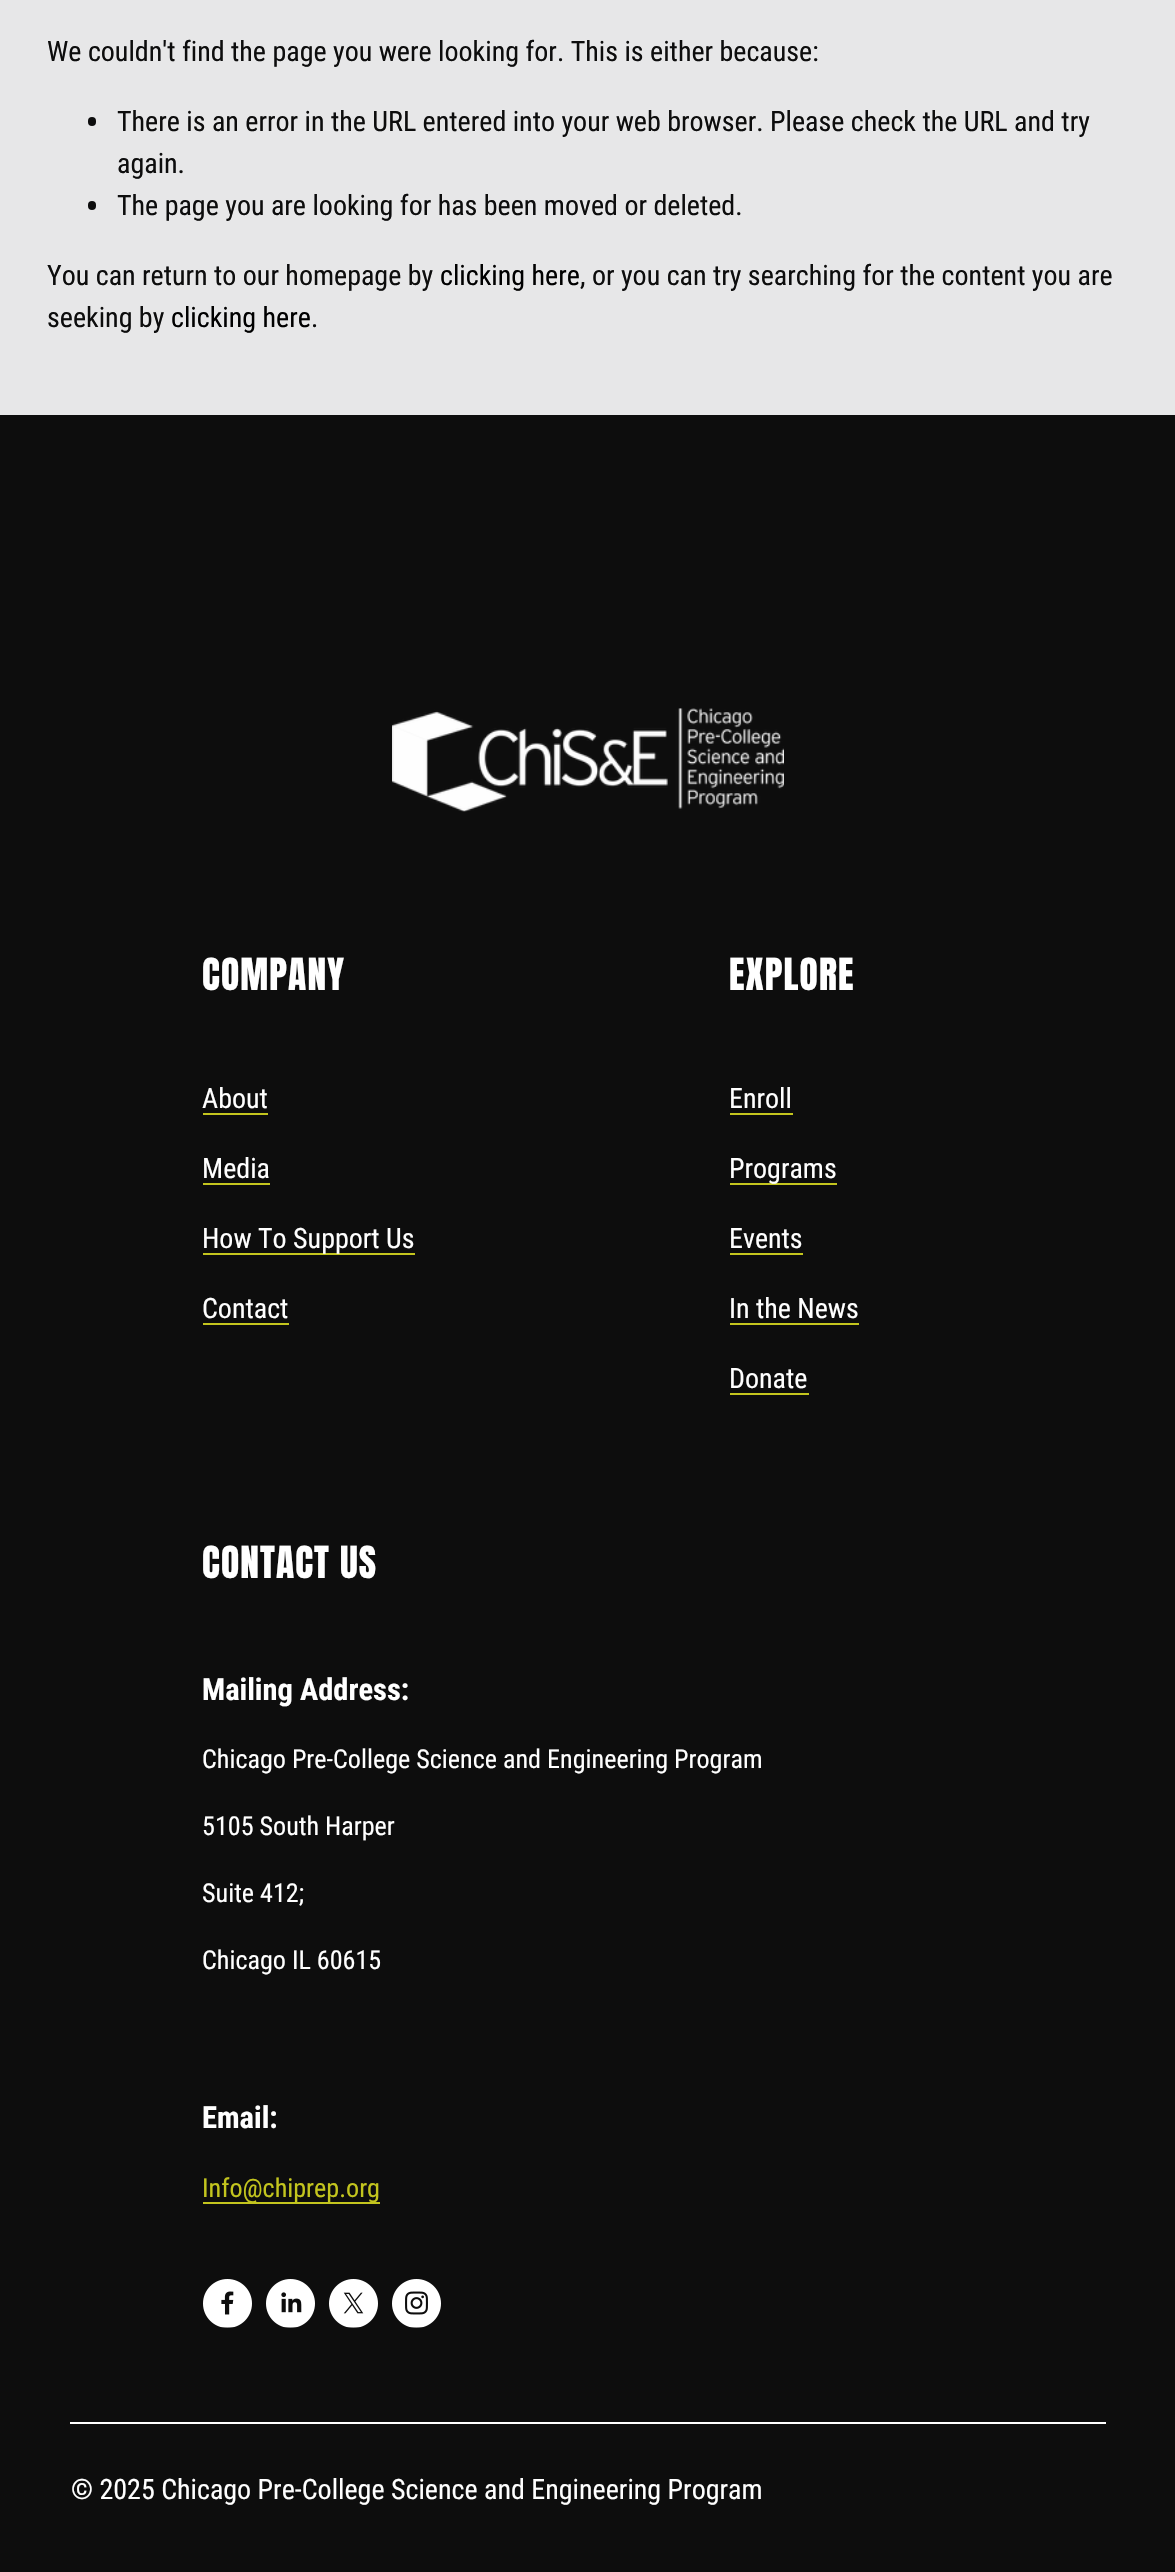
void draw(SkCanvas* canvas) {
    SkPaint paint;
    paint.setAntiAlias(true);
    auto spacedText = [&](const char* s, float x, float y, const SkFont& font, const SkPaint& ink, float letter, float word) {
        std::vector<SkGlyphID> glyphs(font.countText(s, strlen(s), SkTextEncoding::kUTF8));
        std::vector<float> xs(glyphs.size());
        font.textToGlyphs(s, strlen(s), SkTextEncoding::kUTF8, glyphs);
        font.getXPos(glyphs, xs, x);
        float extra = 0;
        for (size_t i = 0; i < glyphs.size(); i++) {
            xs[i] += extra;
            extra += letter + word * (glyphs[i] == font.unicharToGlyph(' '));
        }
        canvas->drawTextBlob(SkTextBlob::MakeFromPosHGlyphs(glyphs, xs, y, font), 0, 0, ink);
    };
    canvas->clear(0xFFE7E7E8);
    SkFont font1(fontMgr->matchFamilyStyle("Roboto Condensed", SkFontStyle::Normal()), 28);
    font1.setSubpixel(true);
    paint.setColor(0xFF0D0D0D);
    canvas->drawString("We couldn't find the page you were looking for. This is either because:", 47, 61, font1, paint);
    canvas->drawRoundRect(SkRect::MakeXYWH(88, 117, 8, 9), 4, 4, paint);
    canvas->drawString("There is an error in the URL entered into your web browser. Please check the URL and try", 117, 131, font1, paint);
    canvas->drawString("again.", 117, 173, font1, paint);
    canvas->drawRoundRect(SkRect::MakeXYWH(88, 201, 8, 9), 4, 4, paint);
    canvas->drawString("The page you are looking for has been moved or deleted.", 117, 215, font1, paint);
    canvas->drawString("You can return to our homepage by", 47, 285, font1, paint);
    paint.setColor(0xFF000000);
    canvas->drawString("clicking here", 440, 285, font1, paint);
    paint.setColor(0xFF0D0D0D);
    canvas->drawString(", or you can try searching for the content you are", 580, 285, font1, paint);
    canvas->drawString("seeking by", 47, 327, font1, paint);
    paint.setColor(0xFF000000);
    canvas->drawString("clicking here", 171, 327, font1, paint);
    paint.setColor(0xFF0D0D0D);
    canvas->drawString(".", 311, 327, font1, paint);
    canvas->drawRect(SkRect::MakeXYWH(0, 415, 1175, 2157), paint);
    canvas->drawImageRect(SkImages::DeferredFromEncodedData(SkData::MakeFromFileName("img1.png")), SkRect::MakeXYWH(392, 708, 392, 104), SkSamplingOptions());
    SkFont font2(fontMgr->matchFamilyStyle("Anton", SkFontStyle::Normal()), 37.5f);
    font2.setSubpixel(true);
    paint.setColor(0xFFFFFFFF);
    spacedText("COMPANY", 202, 990, font2, paint, 1.1f, 0);
    spacedText("EXPLORE", 729, 990, font2, paint, 1.1f, 0);
    canvas->drawString("About", 202, 1108, font1, paint);
    paint.setColor(0xFFC3C51E);
    canvas->drawRect(SkRect::MakeXYWH(203, 1113, 65, 2), paint);
    paint.setColor(0xFFFFFFFF);
    canvas->drawString("Media", 202, 1178, font1, paint);
    paint.setColor(0xFFC3C51E);
    canvas->drawRect(SkRect::MakeXYWH(203, 1183, 67, 2), paint);
    canvas->drawRect(SkRect::MakeXYWH(203, 1253, 212, 2), paint);
    paint.setColor(0xFFFFFFFF);
    canvas->drawString("How To Support Us", 202, 1248, font1, paint);
    canvas->drawString("Contact", 202, 1318, font1, paint);
    paint.setColor(0xFFC3C51E);
    canvas->drawRect(SkRect::MakeXYWH(203, 1323, 86, 2), paint);
    paint.setColor(0xFFFFFFFF);
    canvas->drawString("Enroll", 729, 1108, font1, paint);
    paint.setColor(0xFFC3C51E);
    canvas->drawRect(SkRect::MakeXYWH(730, 1113, 63, 2), paint);
    canvas->drawRect(SkRect::MakeXYWH(730, 1183, 107, 2), paint);
    paint.setColor(0xFFFFFFFF);
    canvas->drawString("Programs", 729, 1178, font1, paint);
    canvas->drawString("Events", 729, 1248, font1, paint);
    paint.setColor(0xFFC3C51E);
    canvas->drawRect(SkRect::MakeXYWH(730, 1253, 73, 2), paint);
    paint.setColor(0xFFFFFFFF);
    canvas->drawString("In the News", 729, 1318, font1, paint);
    paint.setColor(0xFFC3C51E);
    canvas->drawRect(SkRect::MakeXYWH(730, 1323, 129, 2), paint);
    paint.setColor(0xFFFFFFFF);
    canvas->drawString("Donate", 729, 1388, font1, paint);
    paint.setColor(0xFFC3C51E);
    canvas->drawRect(SkRect::MakeXYWH(730, 1393, 79, 2), paint);
    paint.setColor(0xFFFFFFFF);
    spacedText("CONTACT US", 202, 1578, font2, paint, 1.1f, 0);
    SkFont font3(fontMgr->matchFamilyStyle("Roboto Condensed", SkFontStyle::Bold()), 30.5f);
    font3.setSubpixel(true);
    canvas->drawString("Mailing Address:", 202, 1700, font3, paint);
    SkFont font4(fontMgr->matchFamilyStyle("Roboto Condensed", SkFontStyle::Normal()), 26.1f);
    font4.setSubpixel(true);
    canvas->drawString("Chicago Pre-College Science and Engineering Program", 202, 1768, font4, paint);
    canvas->drawString("5105 South Harper", 202, 1835, font4, paint);
    canvas->drawString("Suite 412;", 202, 1902, font4, paint);
    canvas->drawString("Chicago IL 60615", 202, 1969, font4, paint);
    canvas->drawString("Email:", 202, 2128, font3, paint);
    paint.setColor(0xFFC3C51E);
    canvas->drawRect(SkRect::MakeXYWH(203, 2202, 177, 2), paint);
    canvas->drawString("Info@chiprep.org", 202, 2197, font4, paint);
    canvas->drawImageRect(SkImages::DeferredFromEncodedData(SkData::MakeFromFileName("img2.png")), SkRect::MakeXYWH(203, 2279, 49, 49), SkSamplingOptions());
    canvas->drawImageRect(SkImages::DeferredFromEncodedData(SkData::MakeFromFileName("img3.png")), SkRect::MakeXYWH(266, 2279, 49, 49), SkSamplingOptions());
    canvas->drawImageRect(SkImages::DeferredFromEncodedData(SkData::MakeFromFileName("img4.png")), SkRect::MakeXYWH(329, 2279, 49, 49), SkSamplingOptions());
    canvas->drawImageRect(SkImages::DeferredFromEncodedData(SkData::MakeFromFileName("img5.png")), SkRect::MakeXYWH(392, 2279, 49, 49), SkSamplingOptions());
    paint.setColor(0xFFFFFFFF);
    canvas->drawRect(SkRect::MakeXYWH(70, 2422, 1036, 2), paint);
    canvas->drawString("© 2025 Chicago Pre-College Science and Engineering Program", 71, 2499, font1, paint);
}
